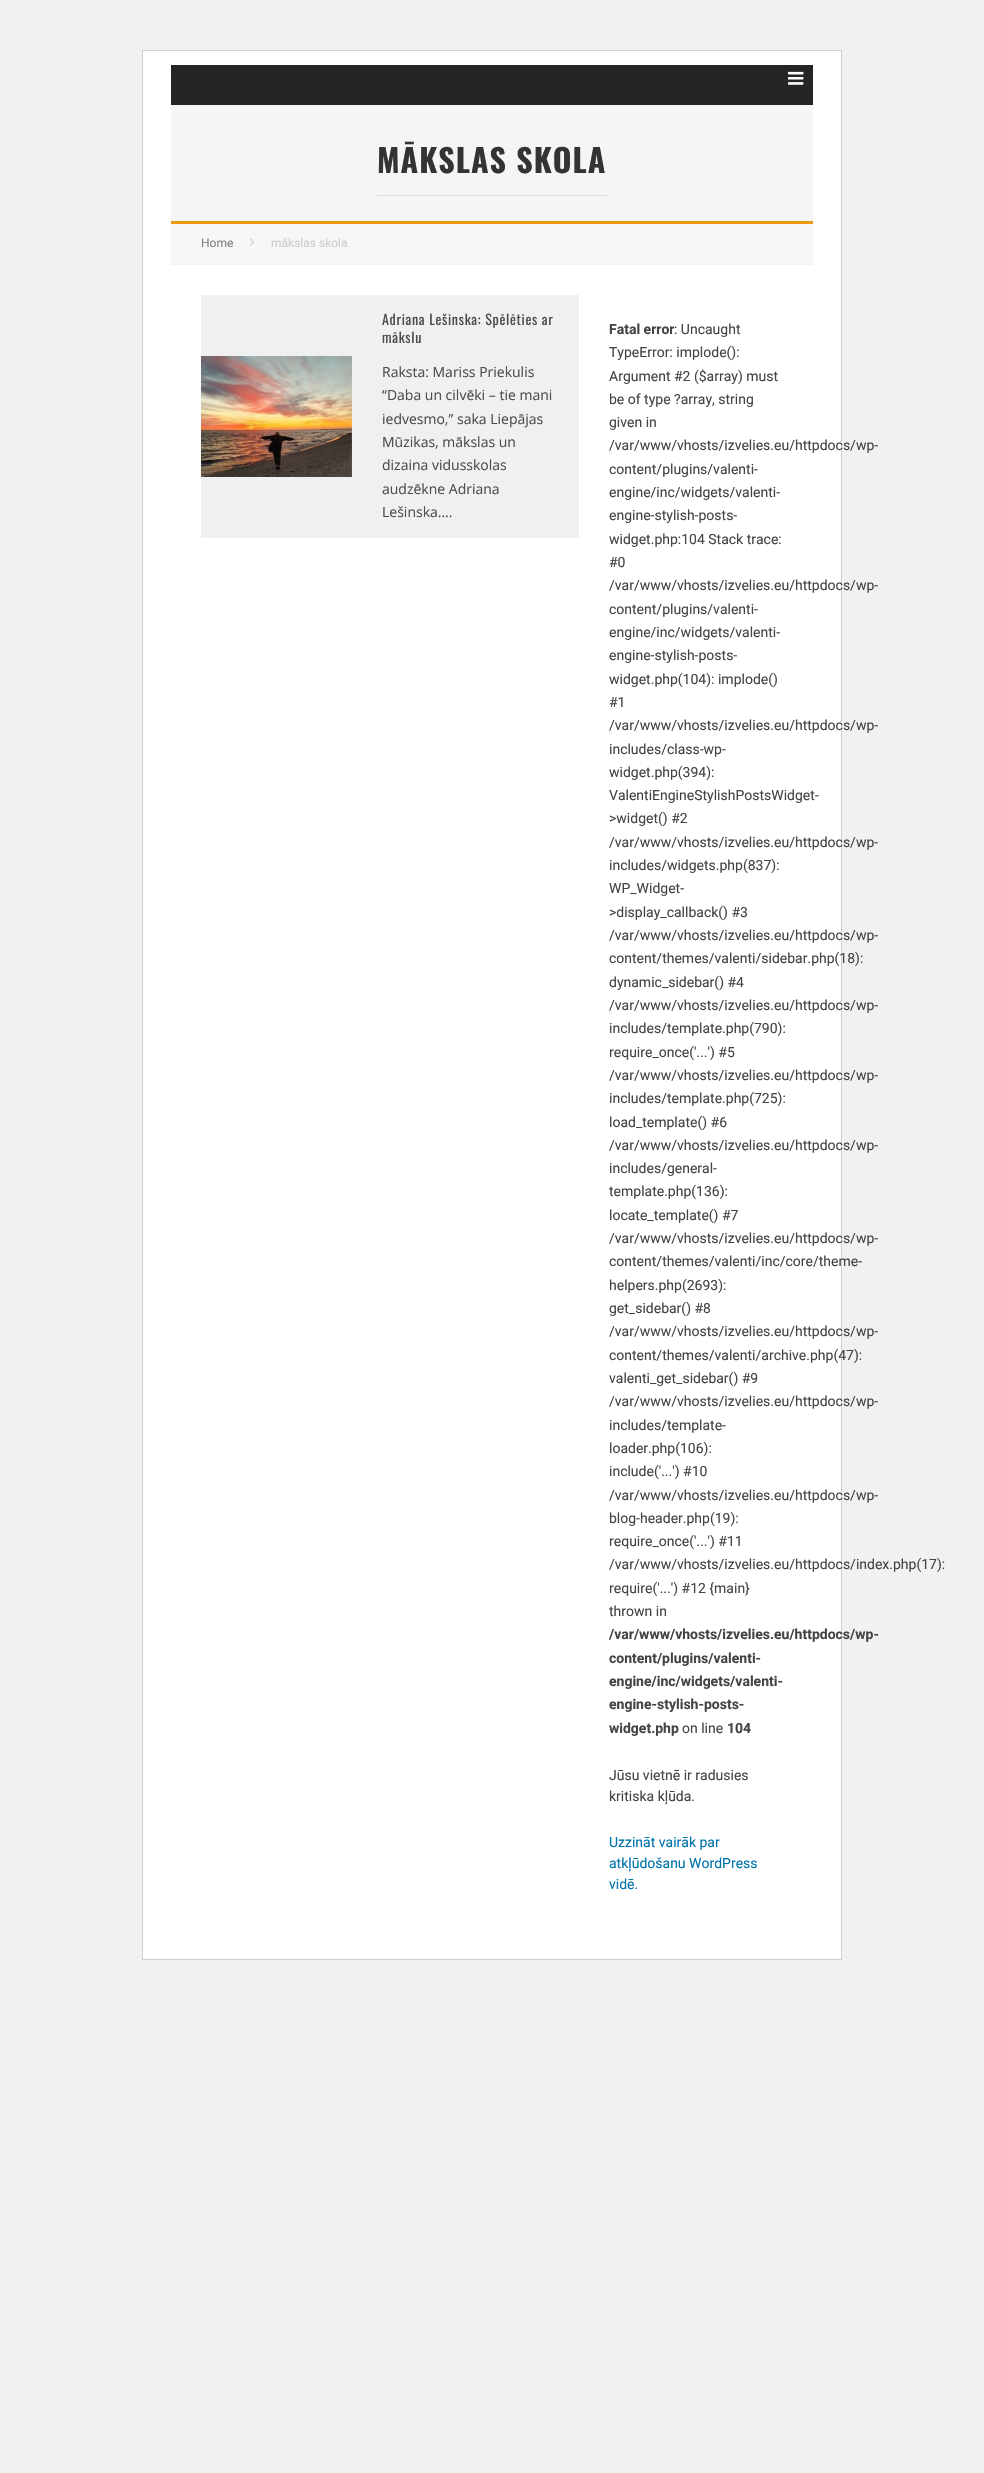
void draw(SkCanvas* canvas) {
    SkPaint paint;
    paint.setAntiAlias(true);
    auto spacedText = [&](const char* s, float x, float y, const SkFont& font, const SkPaint& ink, float letter, float word) {
        std::vector<SkGlyphID> glyphs(font.countText(s, strlen(s), SkTextEncoding::kUTF8));
        std::vector<float> xs(glyphs.size());
        font.textToGlyphs(s, strlen(s), SkTextEncoding::kUTF8, glyphs);
        font.getXPos(glyphs, xs, x);
        float extra = 0;
        for (size_t i = 0; i < glyphs.size(); i++) {
            xs[i] += extra;
            extra += letter + word * (glyphs[i] == font.unicharToGlyph(' '));
        }
        canvas->drawTextBlob(SkTextBlob::MakeFromPosHGlyphs(glyphs, xs, y, font), 0, 0, ink);
    };
    canvas->clear(0xFFF1F1F1);
    paint.setColor(0xFFFFFFFF);
    canvas->drawRect(SkRect::MakeXYWH(142.5f, 50.5f, 699, 1909), paint);
    paint.setStyle(SkPaint::kStroke_Style);
    paint.setStrokeWidth(1);
    paint.setColor(0xFFCCD0D4);
    canvas->drawRect(SkRect::MakeXYWH(142.5f, 50.5f, 699, 1909), paint);
    paint.setStyle(SkPaint::kFill_Style);
    paint.setColor(0xFF252525);
    canvas->drawRect(SkRect::MakeXYWH(171, 65, 642, 40), paint);
    canvas->drawImageRect(SkImages::DeferredFromEncodedData(SkData::MakeFromFileName("img1.png")), SkRect::MakeXYWH(788, 71, 16, 14), SkSamplingOptions());
    paint.setColor(0xFFF5F5F5);
    canvas->drawRect(SkRect::MakeXYWH(171, 105, 642, 116), paint);
    paint.setColor(0xFFEB9812);
    canvas->drawRect(SkRect::MakeXYWH(171, 221, 642, 3), paint);
    paint.setColor(0xFFDADADA);
    canvas->drawRect(SkRect::MakeXYWH(377, 195, 230, 1), paint);
    SkFont font1(fontMgr->matchFamilyStyle("Oswald", SkFontStyle::Bold()), 32);
    font1.setSubpixel(true);
    paint.setColor(0xFF333333);
    spacedText("MĀKSLAS SKOLA", 377, 173, font1, paint, 1, 0);
    paint.setColor(0xFFF7F7F7);
    canvas->drawRect(SkRect::MakeXYWH(171, 224, 642, 40), paint);
    paint.setColor(0xFFF3F3F3);
    canvas->drawRect(SkRect::MakeXYWH(171, 264, 642, 1), paint);
    SkFont font2(fontMgr->matchFamilyStyle("Roboto", SkFontStyle::Normal()), 12);
    font2.setSubpixel(true);
    paint.setColor(0xFF808080);
    canvas->drawString("Home", 201, 247, font2, paint);
    canvas->drawImageRect(SkImages::DeferredFromEncodedData(SkData::MakeFromFileName("img2.png")), SkRect::MakeXYWH(250, 238, 4, 8), SkSamplingOptions());
    paint.setColor(0xFFCCCCCC);
    canvas->drawString("mākslas skola", 271, 247, font2, paint);
    paint.setColor(0xFFF0F0F0);
    canvas->drawRect(SkRect::MakeXYWH(201, 295, 378, 243), paint);
    canvas->drawImageRect(SkImages::DeferredFromEncodedData(SkData::MakeFromFileName("img3.png")), SkRect::MakeXYWH(201, 356, 151, 121), SkSamplingOptions());
    SkFont font3(fontMgr->matchFamilyStyle("Oswald", SkFontStyle::Normal()), 14);
    font3.setSubpixel(true);
    paint.setColor(0xFF4D4D4D);
    spacedText("Adriana Lešinska: Spēlēties ar", 382, 325, font3, paint, 0.7f, 0);
    spacedText("mākslu", 382, 343, font3, paint, 0.7f, 0);
    SkFont font4(fontMgr->matchFamilyStyle("Open Sans", SkFontStyle::Normal()), 14);
    font4.setSubpixel(true);
    canvas->drawString("Raksta: Mariss Priekulis", 382, 377, font4, paint);
    canvas->drawString("“Daba un cilvēki – tie mani", 382, 400, font4, paint);
    canvas->drawString("iedvesmo,” saka Liepājas", 382, 424, font4, paint);
    canvas->drawString("Mūzikas, mākslas un", 382, 447, font4, paint);
    canvas->drawString("dizaina vidusskolas", 382, 470, font4, paint);
    canvas->drawString("audzēkne Adriana", 382, 494, font4, paint);
    canvas->drawString("Lešinska....", 382, 517, font4, paint);
    SkFont font5(fontMgr->matchFamilyStyle("Roboto", SkFontStyle::Bold()), 14);
    font5.setSubpixel(true);
    paint.setColor(0xFF444444);
    canvas->drawString("Fatal error", 609, 334, font5, paint);
    SkFont font6(fontMgr->matchFamilyStyle("Roboto", SkFontStyle::Normal()), 14);
    font6.setSubpixel(true);
    canvas->drawString(": Uncaught", 674, 334, font6, paint);
    canvas->drawString("TypeError: implode():", 609, 357, font6, paint);
    canvas->drawString("Argument #2 ($array) must", 609, 381, font6, paint);
    canvas->drawString("be of type ?array, string", 609, 404, font6, paint);
    canvas->drawString("given in", 609, 427, font6, paint);
    canvas->drawString("/var/www/vhosts/izvelies.eu/httpdocs/wp-", 609, 450, font6, paint);
    canvas->drawString("content/plugins/valenti-", 609, 474, font6, paint);
    canvas->drawString("engine/inc/widgets/valenti-", 609, 497, font6, paint);
    canvas->drawString("engine-stylish-posts-", 609, 520, font6, paint);
    canvas->drawString("widget.php:104 Stack trace:", 609, 544, font6, paint);
    canvas->drawString("#0", 609, 567, font6, paint);
    canvas->drawString("/var/www/vhosts/izvelies.eu/httpdocs/wp-", 609, 590, font6, paint);
    canvas->drawString("content/plugins/valenti-", 609, 614, font6, paint);
    canvas->drawString("engine/inc/widgets/valenti-", 609, 637, font6, paint);
    canvas->drawString("engine-stylish-posts-", 609, 660, font6, paint);
    canvas->drawString("widget.php(104): implode()", 609, 684, font6, paint);
    canvas->drawString("#1", 609, 707, font6, paint);
    canvas->drawString("/var/www/vhosts/izvelies.eu/httpdocs/wp-", 609, 730, font6, paint);
    canvas->drawString("includes/class-wp-", 609, 754, font6, paint);
    canvas->drawString("widget.php(394):", 609, 777, font6, paint);
    canvas->drawString("ValentiEngineStylishPostsWidget-", 609, 800, font6, paint);
    canvas->drawString(">widget() #2", 609, 823, font6, paint);
    canvas->drawString("/var/www/vhosts/izvelies.eu/httpdocs/wp-", 609, 847, font6, paint);
    canvas->drawString("includes/widgets.php(837):", 609, 870, font6, paint);
    canvas->drawString("WP_Widget-", 609, 893, font6, paint);
    canvas->drawString(">display_callback() #3", 609, 917, font6, paint);
    canvas->drawString("/var/www/vhosts/izvelies.eu/httpdocs/wp-", 609, 940, font6, paint);
    canvas->drawString("content/themes/valenti/sidebar.php(18):", 609, 963, font6, paint);
    canvas->drawString("dynamic_sidebar() #4", 609, 987, font6, paint);
    canvas->drawString("/var/www/vhosts/izvelies.eu/httpdocs/wp-", 609, 1010, font6, paint);
    canvas->drawString("includes/template.php(790):", 609, 1033, font6, paint);
    canvas->drawString("require_once('...') #5", 609, 1057, font6, paint);
    canvas->drawString("/var/www/vhosts/izvelies.eu/httpdocs/wp-", 609, 1080, font6, paint);
    canvas->drawString("includes/template.php(725):", 609, 1103, font6, paint);
    canvas->drawString("load_template() #6", 609, 1127, font6, paint);
    canvas->drawString("/var/www/vhosts/izvelies.eu/httpdocs/wp-", 609, 1150, font6, paint);
    canvas->drawString("includes/general-", 609, 1173, font6, paint);
    canvas->drawString("template.php(136):", 609, 1196, font6, paint);
    canvas->drawString("locate_template() #7", 609, 1220, font6, paint);
    canvas->drawString("/var/www/vhosts/izvelies.eu/httpdocs/wp-", 609, 1243, font6, paint);
    canvas->drawString("content/themes/valenti/inc/core/theme-", 609, 1266, font6, paint);
    canvas->drawString("helpers.php(2693):", 609, 1290, font6, paint);
    canvas->drawString("get_sidebar() #8", 609, 1313, font6, paint);
    canvas->drawString("/var/www/vhosts/izvelies.eu/httpdocs/wp-", 609, 1336, font6, paint);
    canvas->drawString("content/themes/valenti/archive.php(47):", 609, 1360, font6, paint);
    canvas->drawString("valenti_get_sidebar() #9", 609, 1383, font6, paint);
    canvas->drawString("/var/www/vhosts/izvelies.eu/httpdocs/wp-", 609, 1406, font6, paint);
    canvas->drawString("includes/template-", 609, 1430, font6, paint);
    canvas->drawString("loader.php(106):", 609, 1453, font6, paint);
    canvas->drawString("include('...') #10", 609, 1476, font6, paint);
    canvas->drawString("/var/www/vhosts/izvelies.eu/httpdocs/wp-", 609, 1500, font6, paint);
    canvas->drawString("blog-header.php(19):", 609, 1523, font6, paint);
    canvas->drawString("require_once('...') #11", 609, 1546, font6, paint);
    canvas->drawString("/var/www/vhosts/izvelies.eu/httpdocs/index.php(17):", 609, 1569, font6, paint);
    canvas->drawString("require('...') #12 {main}", 609, 1593, font6, paint);
    canvas->drawString("thrown in", 609, 1616, font6, paint);
    canvas->drawString("/var/www/vhosts/izvelies.eu/httpdocs/wp-", 609, 1639, font5, paint);
    canvas->drawString("content/plugins/valenti-", 609, 1663, font5, paint);
    canvas->drawString("engine/inc/widgets/valenti-", 609, 1686, font5, paint);
    canvas->drawString("engine-stylish-posts-", 609, 1709, font5, paint);
    canvas->drawString("widget.php", 609, 1733, font5, paint);
    canvas->drawString("on line", 682, 1733, font6, paint);
    canvas->drawString("104", 727, 1733, font5, paint);
    canvas->drawString("Jūsu vietnē ir radusies", 609, 1780, font6, paint);
    canvas->drawString("kritiska kļūda.", 609, 1801, font6, paint);
    paint.setColor(0xFF0073AA);
    canvas->drawString("Uzzināt vairāk par", 609, 1847, font6, paint);
    canvas->drawString("atkļūdošanu WordPress", 609, 1868, font6, paint);
    canvas->drawString("vidē.", 609, 1889, font6, paint);
}
